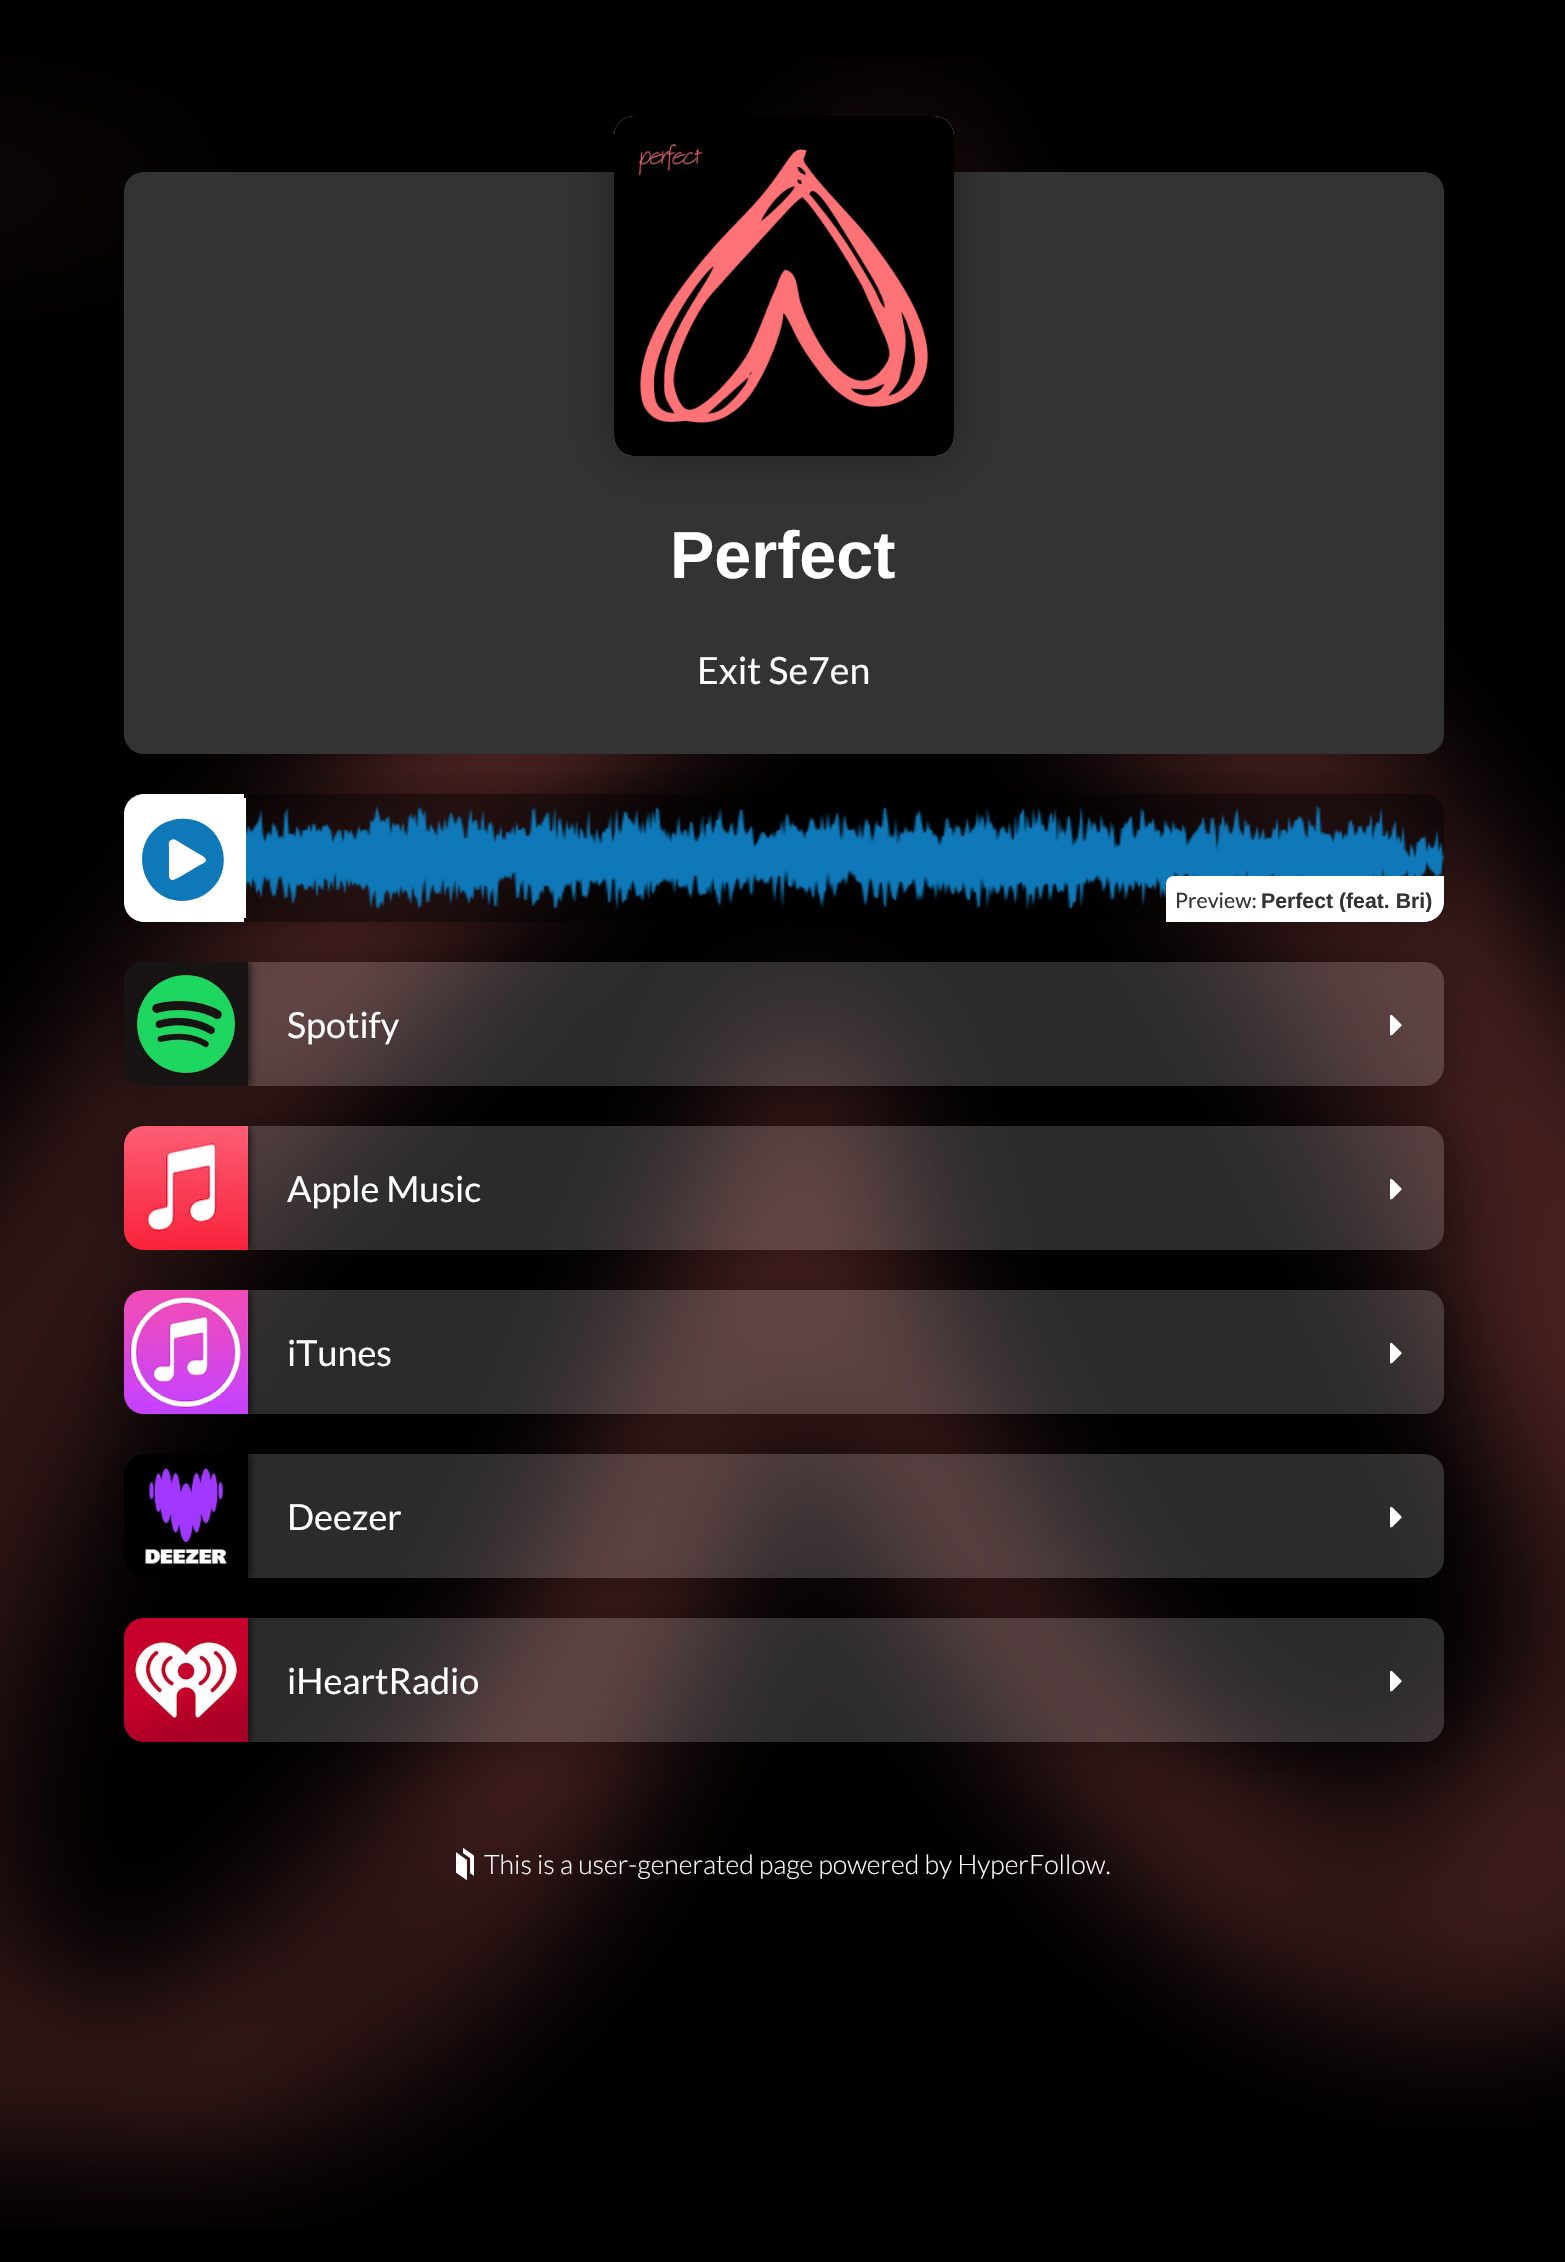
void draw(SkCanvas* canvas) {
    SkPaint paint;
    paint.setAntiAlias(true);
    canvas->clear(0xFF000000);
    canvas->drawImageRect(SkImages::DeferredFromEncodedData(SkData::MakeFromFileName("img1.png")), SkRect::MakeXYWH(0, 58, 1565, 2170), SkSamplingOptions());
    paint.setColor(0xFF333333);
    canvas->drawRoundRect(SkRect::MakeXYWH(124, 172, 1320, 582), 20, 20, paint);
    paint.setColor(0x59000000);
    paint.setMaskFilter(SkMaskFilter::MakeBlur(kNormal_SkBlurStyle, 25));
    canvas->drawRoundRect(SkRect::MakeXYWH(614, 116, 340, 340), 20, 20, paint);
    paint.setMaskFilter(nullptr);
    paint.setColor(0xFFCCCCCC);
    canvas->drawRoundRect(SkRect::MakeXYWH(614, 116, 340, 340), 20, 20, paint);
    canvas->drawImageRect(SkImages::DeferredFromEncodedData(SkData::MakeFromFileName("img2.png")), SkRect::MakeXYWH(614, 116, 340, 340), SkSamplingOptions());
    SkFont font1(fontMgr->matchFamilyStyle("Liberation Sans", SkFontStyle::Bold()), 66.5f);
    font1.setSubpixel(true);
    paint.setColor(0xFFFFFFFF);
    canvas->drawString("Perfect", 670, 578, font1, paint);
    SkFont font2(fontMgr->matchFamilyStyle("Lato", SkFontStyle::Normal()), 37.5f);
    font2.setSubpixel(true);
    canvas->drawString("Exit Se7en", 697, 684, font2, paint);
    canvas->save();
    canvas->clipRect(SkRect::MakeXYWH(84, 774, 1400, 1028));
    canvas->clipPath(SkPathBuilder(SkPathFillType::kEvenOdd).moveTo(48, 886).lineTo(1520, 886).lineTo(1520, 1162).lineTo(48, 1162).close().moveTo(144, 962).lineTo(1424, 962).cubicTo(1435, 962, 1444, 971, 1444, 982).lineTo(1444, 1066).cubicTo(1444, 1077, 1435, 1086, 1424, 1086).lineTo(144, 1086).cubicTo(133, 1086, 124, 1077, 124, 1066).lineTo(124, 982).cubicTo(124, 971, 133, 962, 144, 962).close().detach(), true);
    paint.setColor(0x59000000);
    paint.setMaskFilter(SkMaskFilter::MakeBlur(kNormal_SkBlurStyle, 25));
    canvas->drawRoundRect(SkRect::MakeXYWH(124, 962, 1320, 124), 20, 20, paint);
    paint.setMaskFilter(nullptr);
    canvas->restore();
    paint.setColor(0x2BFFFFFF);
    canvas->drawRoundRect(SkRect::MakeXYWH(124, 962, 1320, 124), 20, 20, paint);
    canvas->save();
    canvas->clipPath(SkPathBuilder().moveTo(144, 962).lineTo(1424, 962).cubicTo(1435, 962, 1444, 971, 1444, 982).lineTo(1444, 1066).cubicTo(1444, 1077, 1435, 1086, 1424, 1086).lineTo(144, 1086).cubicTo(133, 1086, 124, 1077, 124, 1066).lineTo(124, 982).cubicTo(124, 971, 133, 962, 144, 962).close().detach(), true);
    paint.setColor(0xFF000000);
    paint.setMaskFilter(SkMaskFilter::MakeBlur(kNormal_SkBlurStyle, 5));
    canvas->drawRect(SkRect::MakeXYWH(124, 962, 124, 124), paint);
    paint.setMaskFilter(nullptr);
    canvas->restore();
    canvas->drawImageRect(SkImages::DeferredFromEncodedData(SkData::MakeFromFileName("img4.png")), SkRect::MakeXYWH(124, 962, 124, 124), SkSamplingOptions());
    canvas->save();
    canvas->clipRect(SkRect::MakeXYWH(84, 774, 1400, 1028));
    canvas->clipPath(SkPathBuilder(SkPathFillType::kEvenOdd).moveTo(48, 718).lineTo(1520, 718).lineTo(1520, 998).lineTo(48, 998).close().moveTo(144, 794).lineTo(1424, 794).cubicTo(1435, 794, 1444, 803, 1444, 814).lineTo(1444, 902).cubicTo(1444, 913, 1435, 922, 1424, 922).lineTo(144, 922).cubicTo(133, 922, 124, 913, 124, 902).lineTo(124, 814).cubicTo(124, 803, 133, 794, 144, 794).close().detach(), true);
    paint.setColor(0x59000000);
    paint.setMaskFilter(SkMaskFilter::MakeBlur(kNormal_SkBlurStyle, 25));
    canvas->drawRoundRect(SkRect::MakeXYWH(124, 794, 1320, 128), 20, 20, paint);
    paint.setMaskFilter(nullptr);
    canvas->restore();
    paint.setColor(0xFFFFFFFF);
    canvas->drawPath(SkPathBuilder().moveTo(144, 794).lineTo(244, 794).lineTo(244, 922).lineTo(144, 922).cubicTo(133, 922, 124, 913, 124, 902).lineTo(124, 814).cubicTo(124, 803, 133, 794, 144, 794).close().detach(), paint);
    paint.setColor(0xFF0F78B8);
    canvas->drawPath(SkPathBuilder().moveTo(162, 824).cubicTo(170, 820, 178, 818, 186, 819).cubicTo(226, 821, 238, 875, 204, 895).cubicTo(197, 899, 189, 901, 180, 901).cubicTo(140, 898, 128, 844, 162, 824).close().moveTo(204, 863).cubicTo(210, 859, 201, 855, 199, 854).lineTo(179, 842).cubicTo(177, 841, 174, 838, 171, 840).cubicTo(168, 841, 169, 846, 169, 848).lineTo(169, 871).cubicTo(169, 874, 168, 880, 173, 880).cubicTo(176, 880, 199, 865, 204, 863).close().detach(), paint);
    paint.setColor(0x80000000);
    canvas->drawPath(SkPathBuilder().moveTo(244, 794).lineTo(1424, 794).cubicTo(1435, 794, 1444, 803, 1444, 814).lineTo(1444, 902).cubicTo(1444, 913, 1435, 922, 1424, 922).lineTo(244, 922).close().detach(), paint);
    paint.setColor(0xFFFFFFFF);
    canvas->drawRect(SkRect::MakeXYWH(244, 798, 2, 120), paint);
    canvas->drawImageRect(SkImages::DeferredFromEncodedData(SkData::MakeFromFileName("img3.png")), SkRect::MakeXYWH(246, 805, 1198, 105), SkSamplingOptions());
    canvas->drawPath(SkPathBuilder().moveTo(1174, 876).lineTo(1444, 876).lineTo(1444, 902).cubicTo(1444, 913, 1435, 922, 1424, 922).lineTo(1166, 922).lineTo(1166, 884).cubicTo(1166, 879.5f, 1169.5f, 876, 1174, 876).close().detach(), paint);
    SkFont font3(fontMgr->matchFamilyStyle("Lato", SkFontStyle::Normal()), 21.25f);
    font3.setSubpixel(true);
    paint.setColor(0xFF333333);
    canvas->drawString("Preview:", 1175, 908, font3, paint);
    canvas->save();
    canvas->clipRect(SkRect::MakeXYWH(1176, 886, 258, 26));
    SkFont font4(fontMgr->matchFamilyStyle("Liberation Sans", SkFontStyle::Bold()), 21.25f);
    font4.setSubpixel(true);
    canvas->drawString("Perfect (feat. Bri)", 1261, 908, font4, paint);
    canvas->restore();
    SkFont font5(fontMgr->matchFamilyStyle("Lato", SkFontStyle::Normal()), 36);
    font5.setSubpixel(true);
    paint.setColor(0xFFFFFFFF);
    canvas->drawString("Spotify", 287, 1038, font5, paint);
    canvas->drawImageRect(SkImages::DeferredFromEncodedData(SkData::MakeFromFileName("img5.png")), SkRect::MakeXYWH(1390, 1014, 12, 22), SkSamplingOptions());
    canvas->save();
    canvas->clipRect(SkRect::MakeXYWH(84, 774, 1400, 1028));
    canvas->clipPath(SkPathBuilder(SkPathFillType::kEvenOdd).moveTo(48, 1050).lineTo(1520, 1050).lineTo(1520, 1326).lineTo(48, 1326).close().moveTo(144, 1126).lineTo(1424, 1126).cubicTo(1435, 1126, 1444, 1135, 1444, 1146).lineTo(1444, 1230).cubicTo(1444, 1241, 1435, 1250, 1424, 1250).lineTo(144, 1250).cubicTo(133, 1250, 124, 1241, 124, 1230).lineTo(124, 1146).cubicTo(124, 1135, 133, 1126, 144, 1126).close().detach(), true);
    paint.setColor(0x59000000);
    paint.setMaskFilter(SkMaskFilter::MakeBlur(kNormal_SkBlurStyle, 25));
    canvas->drawRoundRect(SkRect::MakeXYWH(124, 1126, 1320, 124), 20, 20, paint);
    paint.setMaskFilter(nullptr);
    canvas->restore();
    paint.setColor(0x2BFFFFFF);
    canvas->drawRoundRect(SkRect::MakeXYWH(124, 1126, 1320, 124), 20, 20, paint);
    canvas->save();
    canvas->clipPath(SkPathBuilder().moveTo(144, 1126).lineTo(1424, 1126).cubicTo(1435, 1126, 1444, 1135, 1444, 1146).lineTo(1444, 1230).cubicTo(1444, 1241, 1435, 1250, 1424, 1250).lineTo(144, 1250).cubicTo(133, 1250, 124, 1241, 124, 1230).lineTo(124, 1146).cubicTo(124, 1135, 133, 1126, 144, 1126).close().detach(), true);
    paint.setColor(0xFF000000);
    paint.setMaskFilter(SkMaskFilter::MakeBlur(kNormal_SkBlurStyle, 5));
    canvas->drawRect(SkRect::MakeXYWH(124, 1126, 124, 124), paint);
    paint.setMaskFilter(nullptr);
    canvas->restore();
    canvas->drawImageRect(SkImages::DeferredFromEncodedData(SkData::MakeFromFileName("img6.png")), SkRect::MakeXYWH(124, 1126, 124, 124), SkSamplingOptions());
    paint.setColor(0xFFFFFFFF);
    canvas->drawString("Apple Music", 287, 1202, font5, paint);
    canvas->drawImageRect(SkImages::DeferredFromEncodedData(SkData::MakeFromFileName("img7.png")), SkRect::MakeXYWH(1390, 1178, 12, 22), SkSamplingOptions());
    canvas->save();
    canvas->clipRect(SkRect::MakeXYWH(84, 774, 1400, 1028));
    canvas->clipPath(SkPathBuilder(SkPathFillType::kEvenOdd).moveTo(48, 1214).lineTo(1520, 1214).lineTo(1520, 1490).lineTo(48, 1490).close().moveTo(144, 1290).lineTo(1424, 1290).cubicTo(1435, 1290, 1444, 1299, 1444, 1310).lineTo(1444, 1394).cubicTo(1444, 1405, 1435, 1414, 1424, 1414).lineTo(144, 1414).cubicTo(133, 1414, 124, 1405, 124, 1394).lineTo(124, 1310).cubicTo(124, 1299, 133, 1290, 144, 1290).close().detach(), true);
    paint.setColor(0x59000000);
    paint.setMaskFilter(SkMaskFilter::MakeBlur(kNormal_SkBlurStyle, 25));
    canvas->drawRoundRect(SkRect::MakeXYWH(124, 1290, 1320, 124), 20, 20, paint);
    paint.setMaskFilter(nullptr);
    canvas->restore();
    paint.setColor(0x2BFFFFFF);
    canvas->drawRoundRect(SkRect::MakeXYWH(124, 1290, 1320, 124), 20, 20, paint);
    canvas->save();
    canvas->clipPath(SkPathBuilder().moveTo(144, 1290).lineTo(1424, 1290).cubicTo(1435, 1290, 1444, 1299, 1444, 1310).lineTo(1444, 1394).cubicTo(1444, 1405, 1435, 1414, 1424, 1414).lineTo(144, 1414).cubicTo(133, 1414, 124, 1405, 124, 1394).lineTo(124, 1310).cubicTo(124, 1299, 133, 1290, 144, 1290).close().detach(), true);
    paint.setColor(0xFF000000);
    paint.setMaskFilter(SkMaskFilter::MakeBlur(kNormal_SkBlurStyle, 5));
    canvas->drawRect(SkRect::MakeXYWH(124, 1290, 124, 124), paint);
    paint.setMaskFilter(nullptr);
    canvas->restore();
    canvas->drawImageRect(SkImages::DeferredFromEncodedData(SkData::MakeFromFileName("img8.png")), SkRect::MakeXYWH(124, 1290, 124, 124), SkSamplingOptions());
    paint.setColor(0xFFFFFFFF);
    canvas->drawString("iTunes", 287, 1366, font5, paint);
    canvas->drawImageRect(SkImages::DeferredFromEncodedData(SkData::MakeFromFileName("img9.png")), SkRect::MakeXYWH(1390, 1342, 12, 22), SkSamplingOptions());
    canvas->save();
    canvas->clipRect(SkRect::MakeXYWH(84, 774, 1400, 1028));
    canvas->clipPath(SkPathBuilder(SkPathFillType::kEvenOdd).moveTo(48, 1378).lineTo(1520, 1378).lineTo(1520, 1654).lineTo(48, 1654).close().moveTo(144, 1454).lineTo(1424, 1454).cubicTo(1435, 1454, 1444, 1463, 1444, 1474).lineTo(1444, 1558).cubicTo(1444, 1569, 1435, 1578, 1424, 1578).lineTo(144, 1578).cubicTo(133, 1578, 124, 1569, 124, 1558).lineTo(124, 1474).cubicTo(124, 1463, 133, 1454, 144, 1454).close().detach(), true);
    paint.setColor(0x59000000);
    paint.setMaskFilter(SkMaskFilter::MakeBlur(kNormal_SkBlurStyle, 25));
    canvas->drawRoundRect(SkRect::MakeXYWH(124, 1454, 1320, 124), 20, 20, paint);
    paint.setMaskFilter(nullptr);
    canvas->restore();
    paint.setColor(0x2BFFFFFF);
    canvas->drawRoundRect(SkRect::MakeXYWH(124, 1454, 1320, 124), 20, 20, paint);
    canvas->save();
    canvas->clipPath(SkPathBuilder().moveTo(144, 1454).lineTo(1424, 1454).cubicTo(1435, 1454, 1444, 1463, 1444, 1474).lineTo(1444, 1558).cubicTo(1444, 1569, 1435, 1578, 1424, 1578).lineTo(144, 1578).cubicTo(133, 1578, 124, 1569, 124, 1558).lineTo(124, 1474).cubicTo(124, 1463, 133, 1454, 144, 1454).close().detach(), true);
    paint.setColor(0xFF000000);
    paint.setMaskFilter(SkMaskFilter::MakeBlur(kNormal_SkBlurStyle, 5));
    canvas->drawRect(SkRect::MakeXYWH(124, 1454, 124, 124), paint);
    paint.setMaskFilter(nullptr);
    canvas->restore();
    canvas->drawImageRect(SkImages::DeferredFromEncodedData(SkData::MakeFromFileName("img10.png")), SkRect::MakeXYWH(124, 1454, 124, 124), SkSamplingOptions());
    paint.setColor(0xFFFFFFFF);
    canvas->drawString("Deezer", 287, 1530, font5, paint);
    canvas->drawImageRect(SkImages::DeferredFromEncodedData(SkData::MakeFromFileName("img11.png")), SkRect::MakeXYWH(1390, 1506, 12, 22), SkSamplingOptions());
    canvas->save();
    canvas->clipRect(SkRect::MakeXYWH(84, 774, 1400, 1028));
    canvas->clipPath(SkPathBuilder(SkPathFillType::kEvenOdd).moveTo(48, 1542).lineTo(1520, 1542).lineTo(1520, 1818).lineTo(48, 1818).close().moveTo(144, 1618).lineTo(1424, 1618).cubicTo(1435, 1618, 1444, 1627, 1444, 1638).lineTo(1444, 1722).cubicTo(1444, 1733, 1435, 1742, 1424, 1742).lineTo(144, 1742).cubicTo(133, 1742, 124, 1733, 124, 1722).lineTo(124, 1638).cubicTo(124, 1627, 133, 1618, 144, 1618).close().detach(), true);
    paint.setColor(0x59000000);
    paint.setMaskFilter(SkMaskFilter::MakeBlur(kNormal_SkBlurStyle, 25));
    canvas->drawRoundRect(SkRect::MakeXYWH(124, 1618, 1320, 124), 20, 20, paint);
    paint.setMaskFilter(nullptr);
    canvas->restore();
    paint.setColor(0x2BFFFFFF);
    canvas->drawRoundRect(SkRect::MakeXYWH(124, 1618, 1320, 124), 20, 20, paint);
    canvas->save();
    canvas->clipPath(SkPathBuilder().moveTo(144, 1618).lineTo(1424, 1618).cubicTo(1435, 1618, 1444, 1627, 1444, 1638).lineTo(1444, 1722).cubicTo(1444, 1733, 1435, 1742, 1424, 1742).lineTo(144, 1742).cubicTo(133, 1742, 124, 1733, 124, 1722).lineTo(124, 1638).cubicTo(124, 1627, 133, 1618, 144, 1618).close().detach(), true);
    paint.setColor(0xFF000000);
    paint.setMaskFilter(SkMaskFilter::MakeBlur(kNormal_SkBlurStyle, 5));
    canvas->drawRect(SkRect::MakeXYWH(124, 1618, 124, 124), paint);
    paint.setMaskFilter(nullptr);
    canvas->restore();
    canvas->drawImageRect(SkImages::DeferredFromEncodedData(SkData::MakeFromFileName("img12.png")), SkRect::MakeXYWH(124, 1618, 124, 124), SkSamplingOptions());
    paint.setColor(0xFFFFFFFF);
    canvas->drawString("iHeartRadio", 287, 1694, font5, paint);
    canvas->drawImageRect(SkImages::DeferredFromEncodedData(SkData::MakeFromFileName("img13.png")), SkRect::MakeXYWH(1390, 1670, 12, 22), SkSamplingOptions());
    canvas->drawImageRect(SkImages::DeferredFromEncodedData(SkData::MakeFromFileName("img14.png")), SkRect::MakeXYWH(456, 1848, 18, 32), SkSamplingOptions());
    SkFont font6(fontMgr->matchFamilyStyle("Lato", SkFontStyle(300, SkFontStyle::kNormal_Width, SkFontStyle::kUpright_Slant)), 26.7f);
    font6.setSubpixel(true);
    canvas->drawString("This is a user-generated page powered by HyperFollow.", 484, 1874, font6, paint);
}
